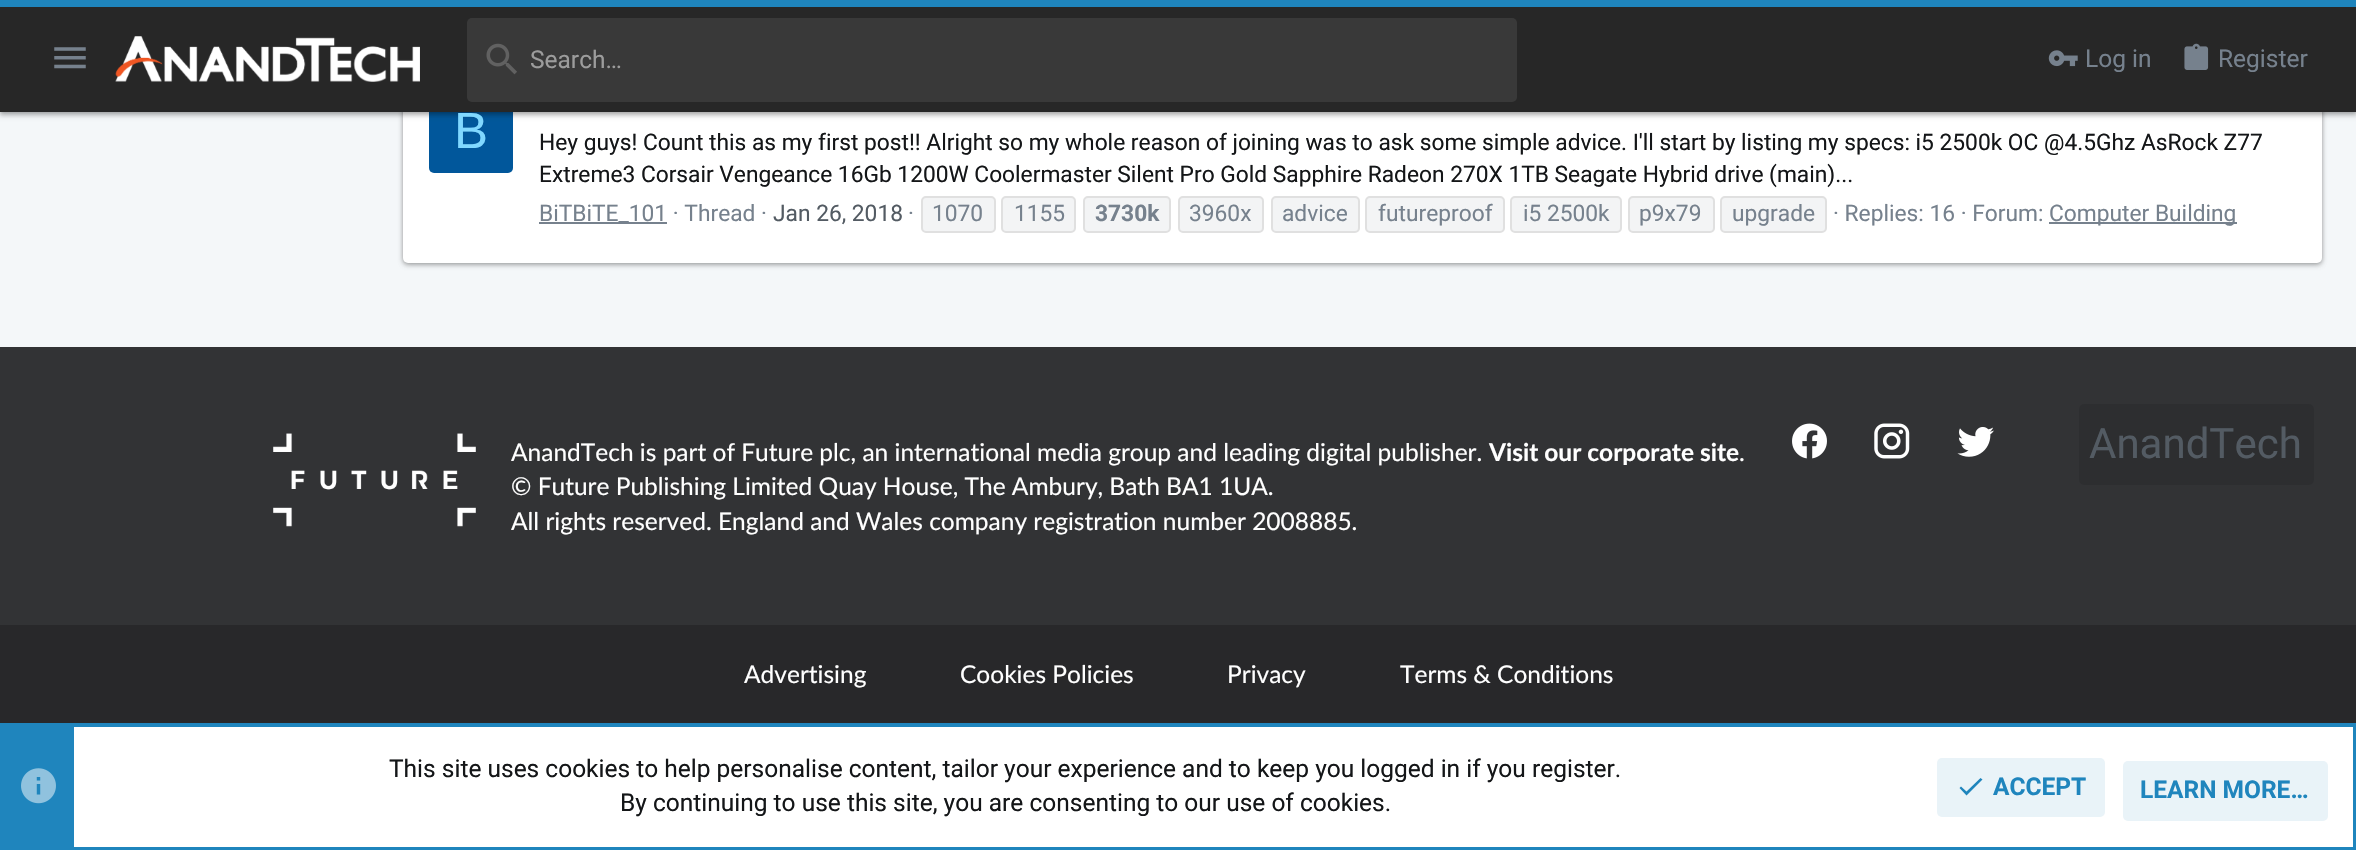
void draw(SkCanvas* canvas) {
    SkPaint paint;
    paint.setAntiAlias(true);
    canvas->clear(0xFFF4F7F9);
    paint.setColor(0x33000000);
    paint.setMaskFilter(SkMaskFilter::MakeBlur(kNormal_SkBlurStyle, 2.5f));
    canvas->drawRoundRect(SkRect::MakeXYWH(403, 65, 1919, 199), 5, 5, paint);
    paint.setMaskFilter(nullptr);
    paint.setColor(0x1F000000);
    paint.setMaskFilter(SkMaskFilter::MakeBlur(kNormal_SkBlurStyle, 2));
    canvas->drawRoundRect(SkRect::MakeXYWH(403, 67, 1919, 199), 5, 5, paint);
    paint.setMaskFilter(nullptr);
    paint.setColor(0x24000000);
    paint.setMaskFilter(SkMaskFilter::MakeBlur(kNormal_SkBlurStyle, 2));
    canvas->drawRoundRect(SkRect::MakeXYWH(403, 63, 1919, 200), 5, 5, paint);
    paint.setMaskFilter(nullptr);
    paint.setColor(0xFFFFFFFF);
    canvas->drawRoundRect(SkRect::MakeXYWH(403, 63, 1919, 200), 5, 5, paint);
    paint.setColor(0xFF01579B);
    canvas->drawRoundRect(SkRect::MakeXYWH(429, 89, 84, 84), 5, 5, paint);
    paint.setColor(0x33000000);
    paint.setMaskFilter(SkMaskFilter::MakeBlur(kNormal_SkBlurStyle, 2.5f));
    canvas->drawRect(SkRect::MakeXYWH(0, 2, 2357, 112), paint);
    paint.setMaskFilter(nullptr);
    paint.setColor(0x1F000000);
    paint.setMaskFilter(SkMaskFilter::MakeBlur(kNormal_SkBlurStyle, 2));
    canvas->drawRect(SkRect::MakeXYWH(0, 4, 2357, 112), paint);
    paint.setMaskFilter(nullptr);
    paint.setColor(0x24000000);
    paint.setMaskFilter(SkMaskFilter::MakeBlur(kNormal_SkBlurStyle, 2));
    canvas->drawRect(SkRect::MakeXYWH(0, 0, 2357, 112), paint);
    paint.setMaskFilter(nullptr);
    paint.setColor(0xFF272727);
    canvas->drawRect(SkRect::MakeXYWH(0, 7, 2356, 105), paint);
    paint.setColor(0xFF1F85BD);
    canvas->drawRect(SkRect::MakeXYWH(0, 0, 2356, 7), paint);
    canvas->drawImageRect(SkImages::DeferredFromEncodedData(SkData::MakeFromFileName("img1.png")), SkRect::MakeXYWH(54, 47, 32, 22), SkSamplingOptions());
    canvas->drawImageRect(SkImages::DeferredFromEncodedData(SkData::MakeFromFileName("img2.png")), SkRect::MakeXYWH(115, 36, 305, 46), SkSamplingOptions());
    paint.setColor(0xFF393939);
    canvas->drawRoundRect(SkRect::MakeXYWH(467, 18, 1050, 84), 5, 5, paint);
    canvas->drawImageRect(SkImages::DeferredFromEncodedData(SkData::MakeFromFileName("img3.png")), SkRect::MakeXYWH(486, 43, 31, 32), SkSamplingOptions());
    SkFont font1(fontMgr->matchFamilyStyle("Roboto", SkFontStyle::Normal()), 24.5f);
    font1.setSubpixel(true);
    paint.setColor(0xFF9C9C9C);
    canvas->drawString("Search…", 530, 68, font1, paint);
    canvas->drawImageRect(SkImages::DeferredFromEncodedData(SkData::MakeFromFileName("img4.png")), SkRect::MakeXYWH(2048, 50, 30, 17), SkSamplingOptions());
    paint.setColor(0xFF76818D);
    canvas->drawString("Log in", 2085, 67, font1, paint);
    canvas->drawImageRect(SkImages::DeferredFromEncodedData(SkData::MakeFromFileName("img5.png")), SkRect::MakeXYWH(2184, 43, 25, 27), SkSamplingOptions());
    canvas->drawString("Register", 2218, 67, font1, paint);
    SkFont font2(fontMgr->matchFamilyStyle("Liberation Sans", SkFontStyle::Normal()), 51);
    font2.setSubpixel(true);
    paint.setColor(0xFF80D8FF);
    canvas->drawString("B", 454, 148, font2, paint);
    SkFont font3(fontMgr->matchFamilyStyle("Roboto", SkFontStyle::Normal()), 22.75f);
    font3.setSubpixel(true);
    paint.setColor(0xFF141618);
    canvas->drawString("Hey guys! Count this as my first post!! Alright so my whole reason of joining was to ask some simple advice. I'll start by listing my specs: i5 2500k OC @4.5Ghz AsRock Z77", 539, 150, font3, paint);
    canvas->drawString("Extreme3 Corsair Vengeance 16Gb 1200W Coolermaster Silent Pro Gold Sapphire Radeon 270X 1TB Seagate Hybrid drive (main)...", 539, 182, font3, paint);
    paint.setColor(0xFF76818D);
    canvas->drawRect(SkRect::MakeXYWH(539, 222, 128, 2), paint);
    canvas->drawString("BiTBiTE_101 · Thread ·", 539, 221, font3, paint);
    paint.setColor(0xFF535B63);
    canvas->drawString("Jan 26, 2018", 773, 221, font3, paint);
    paint.setColor(0xFF76818D);
    canvas->drawString("·", 908, 221, font3, paint);
    paint.setColor(0xFFF3F4F5);
    canvas->drawRoundRect(SkRect::MakeXYWH(922, 197, 73, 35), 4, 4, paint);
    paint.setStyle(SkPaint::kStroke_Style);
    paint.setStrokeWidth(2);
    paint.setColor(0xFFE0E0E0);
    canvas->drawRoundRect(SkRect::MakeXYWH(922, 197, 73, 35), 4, 4, paint);
    paint.setStyle(SkPaint::kFill_Style);
    paint.setColor(0xFF76818D);
    canvas->drawString("1070", 932, 221, font3, paint);
    paint.setColor(0xFFF3F4F5);
    canvas->drawRoundRect(SkRect::MakeXYWH(1002, 197, 73, 35), 4, 4, paint);
    paint.setStyle(SkPaint::kStroke_Style);
    paint.setColor(0xFFE0E0E0);
    canvas->drawRoundRect(SkRect::MakeXYWH(1002, 197, 73, 35), 4, 4, paint);
    paint.setStyle(SkPaint::kFill_Style);
    paint.setColor(0xFF76818D);
    canvas->drawString("1155", 1014, 221, font3, paint);
    paint.setColor(0xFFF3F4F5);
    canvas->drawRoundRect(SkRect::MakeXYWH(1084, 197, 86, 35), 4, 4, paint);
    paint.setStyle(SkPaint::kStroke_Style);
    paint.setColor(0xFFE0E0E0);
    canvas->drawRoundRect(SkRect::MakeXYWH(1084, 197, 86, 35), 4, 4, paint);
    SkFont font4(fontMgr->matchFamilyStyle("Roboto", SkFontStyle::Bold()), 22.75f);
    font4.setSubpixel(true);
    paint.setStyle(SkPaint::kFill_Style);
    paint.setColor(0xFF76818D);
    canvas->drawString("3730k", 1095, 221, font4, paint);
    paint.setColor(0xFFF3F4F5);
    canvas->drawRoundRect(SkRect::MakeXYWH(1179, 197, 84, 35), 4, 4, paint);
    paint.setStyle(SkPaint::kStroke_Style);
    paint.setColor(0xFFE0E0E0);
    canvas->drawRoundRect(SkRect::MakeXYWH(1179, 197, 84, 35), 4, 4, paint);
    paint.setStyle(SkPaint::kFill_Style);
    paint.setColor(0xFF76818D);
    canvas->drawString("3960x", 1189, 221, font3, paint);
    paint.setColor(0xFFF3F4F5);
    canvas->drawRoundRect(SkRect::MakeXYWH(1272, 197, 87, 35), 4, 4, paint);
    paint.setStyle(SkPaint::kStroke_Style);
    paint.setColor(0xFFE0E0E0);
    canvas->drawRoundRect(SkRect::MakeXYWH(1272, 197, 87, 35), 4, 4, paint);
    paint.setStyle(SkPaint::kFill_Style);
    paint.setColor(0xFF76818D);
    canvas->drawString("advice", 1282, 221, font3, paint);
    paint.setColor(0xFFF3F4F5);
    canvas->drawRoundRect(SkRect::MakeXYWH(1366, 197, 138, 35), 4, 4, paint);
    paint.setStyle(SkPaint::kStroke_Style);
    paint.setColor(0xFFE0E0E0);
    canvas->drawRoundRect(SkRect::MakeXYWH(1366, 197, 138, 35), 4, 4, paint);
    paint.setStyle(SkPaint::kFill_Style);
    paint.setColor(0xFF76818D);
    canvas->drawString("futureproof", 1378, 221, font3, paint);
    paint.setColor(0xFFF3F4F5);
    canvas->drawRoundRect(SkRect::MakeXYWH(1511, 197, 110, 35), 4, 4, paint);
    paint.setStyle(SkPaint::kStroke_Style);
    paint.setColor(0xFFE0E0E0);
    canvas->drawRoundRect(SkRect::MakeXYWH(1511, 197, 110, 35), 4, 4, paint);
    paint.setStyle(SkPaint::kFill_Style);
    paint.setColor(0xFF76818D);
    canvas->drawString("i5 2500k", 1523, 221, font3, paint);
    paint.setColor(0xFFF3F4F5);
    canvas->drawRoundRect(SkRect::MakeXYWH(1629, 197, 85, 35), 4, 4, paint);
    paint.setStyle(SkPaint::kStroke_Style);
    paint.setColor(0xFFE0E0E0);
    canvas->drawRoundRect(SkRect::MakeXYWH(1629, 197, 85, 35), 4, 4, paint);
    paint.setStyle(SkPaint::kFill_Style);
    paint.setColor(0xFF76818D);
    canvas->drawString("p9x79", 1639, 221, font3, paint);
    paint.setColor(0xFFF3F4F5);
    canvas->drawRoundRect(SkRect::MakeXYWH(1721, 197, 105, 35), 4, 4, paint);
    paint.setStyle(SkPaint::kStroke_Style);
    paint.setColor(0xFFE0E0E0);
    canvas->drawRoundRect(SkRect::MakeXYWH(1721, 197, 105, 35), 4, 4, paint);
    paint.setStyle(SkPaint::kFill_Style);
    paint.setColor(0xFF76818D);
    canvas->drawString("upgrade", 1732, 221, font3, paint);
    canvas->drawString("· Replies: 16 · Forum:", 1833, 221, font3, paint);
    canvas->drawRect(SkRect::MakeXYWH(2049, 222, 188, 2), paint);
    canvas->drawString("Computer Building", 2049, 221, font3, paint);
    paint.setColor(0xFF323335);
    canvas->drawRect(SkRect::MakeXYWH(0, 347, 2356, 278), paint);
    canvas->drawImageRect(SkImages::DeferredFromEncodedData(SkData::MakeFromFileName("img6.png")), SkRect::MakeXYWH(273, 433, 203, 94), SkSamplingOptions());
    SkFont font5(fontMgr->matchFamilyStyle("Lato", SkFontStyle::Normal()), 24.5f);
    font5.setSubpixel(true);
    paint.setColor(0xFFFFFFFF);
    canvas->drawString("AnandTech is part of Future plc, an international media group and leading digital publisher.", 511, 461, font5, paint);
    SkFont font6(fontMgr->matchFamilyStyle("Lato", SkFontStyle::Bold()), 24.5f);
    font6.setSubpixel(true);
    canvas->drawString("Visit our corporate site", 1489, 461, font6, paint);
    canvas->drawString(".", 1739, 461, font5, paint);
    canvas->drawString("© Future Publishing Limited Quay House, The Ambury, Bath BA1 1UA.", 511, 495, font5, paint);
    canvas->drawString("All rights reserved. England and Wales company registration number 2008885.", 511, 530, font5, paint);
    canvas->drawImageRect(SkImages::DeferredFromEncodedData(SkData::MakeFromFileName("img7.png")), SkRect::MakeXYWH(1792, 423, 35, 36), SkSamplingOptions());
    canvas->drawImageRect(SkImages::DeferredFromEncodedData(SkData::MakeFromFileName("img8.png")), SkRect::MakeXYWH(1874, 423, 36, 36), SkSamplingOptions());
    canvas->drawImageRect(SkImages::DeferredFromEncodedData(SkData::MakeFromFileName("img9.png")), SkRect::MakeXYWH(1957, 427, 37, 30), SkSamplingOptions());
    paint.setColor(0xFF2D2E30);
    canvas->drawRoundRect(SkRect::MakeXYWH(2079, 404, 235, 81), 5, 5, paint);
    SkFont font7(fontMgr->matchFamilyStyle("Roboto", SkFontStyle::Normal()), 42);
    font7.setSubpixel(true);
    paint.setColor(0xFF535B63);
    canvas->drawString("AnandTech", 2089, 458, font7, paint);
    paint.setColor(0xFF28282A);
    canvas->drawRect(SkRect::MakeXYWH(0, 625, 2356, 98), paint);
    paint.setColor(0xFFFFFFFF);
    canvas->drawString("Advertising", 744, 683, font5, paint);
    canvas->drawString("Cookies Policies", 960, 683, font5, paint);
    canvas->drawString("Privacy", 1227, 683, font5, paint);
    canvas->drawString("Terms & Conditions", 1400, 683, font5, paint);
    canvas->drawRect(SkRect::MakeXYWH(74, 727, 2279, 120), paint);
    paint.setStyle(SkPaint::kStroke_Style);
    paint.setStrokeWidth(4);
    paint.setColor(0xFF1F85BD);
    canvas->drawRect(SkRect::MakeXYWH(2, 725, 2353, 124), paint);
    paint.setStyle(SkPaint::kFill_Style);
    canvas->drawRect(SkRect::MakeXYWH(4, 727, 70, 120), paint);
    canvas->drawImageRect(SkImages::DeferredFromEncodedData(SkData::MakeFromFileName("img10.png")), SkRect::MakeXYWH(21, 768, 35, 36), SkSamplingOptions());
    paint.setColor(0xFF141618);
    canvas->drawString("This site uses cookies to help personalise content, tailor your experience and to keep you logged in if you register.", 389, 777, font1, paint);
    canvas->drawString("By continuing to use this site, you are consenting to our use of cookies.", 620, 811, font1, paint);
    paint.setColor(0xFFE9F3F8);
    canvas->drawRoundRect(SkRect::MakeXYWH(1937, 758, 168, 59), 5, 5, paint);
    paint.setColor(0xFF1F85BD);
    canvas->drawPath(SkPathBuilder().moveTo(1982.5f, 779.5f).lineTo(1966.5f, 795.5f).lineTo(1959.5f, 788).lineTo(1961, 786.5f).lineTo(1966.5f, 791.5f).lineTo(1980.5f, 778).close().detach(), paint);
    SkFont font8(fontMgr->matchFamilyStyle("Roboto", SkFontStyle::Bold()), 24.5f);
    font8.setSubpixel(true);
    canvas->drawString("ACCEPT", 1993, 795, font8, paint);
    paint.setColor(0xFFE9F3F8);
    canvas->drawRoundRect(SkRect::MakeXYWH(2123, 761, 205, 60), 5, 5, paint);
    paint.setColor(0xFF1F85BD);
    canvas->drawString("LEARN MORE…", 2140, 798, font8, paint);
}
